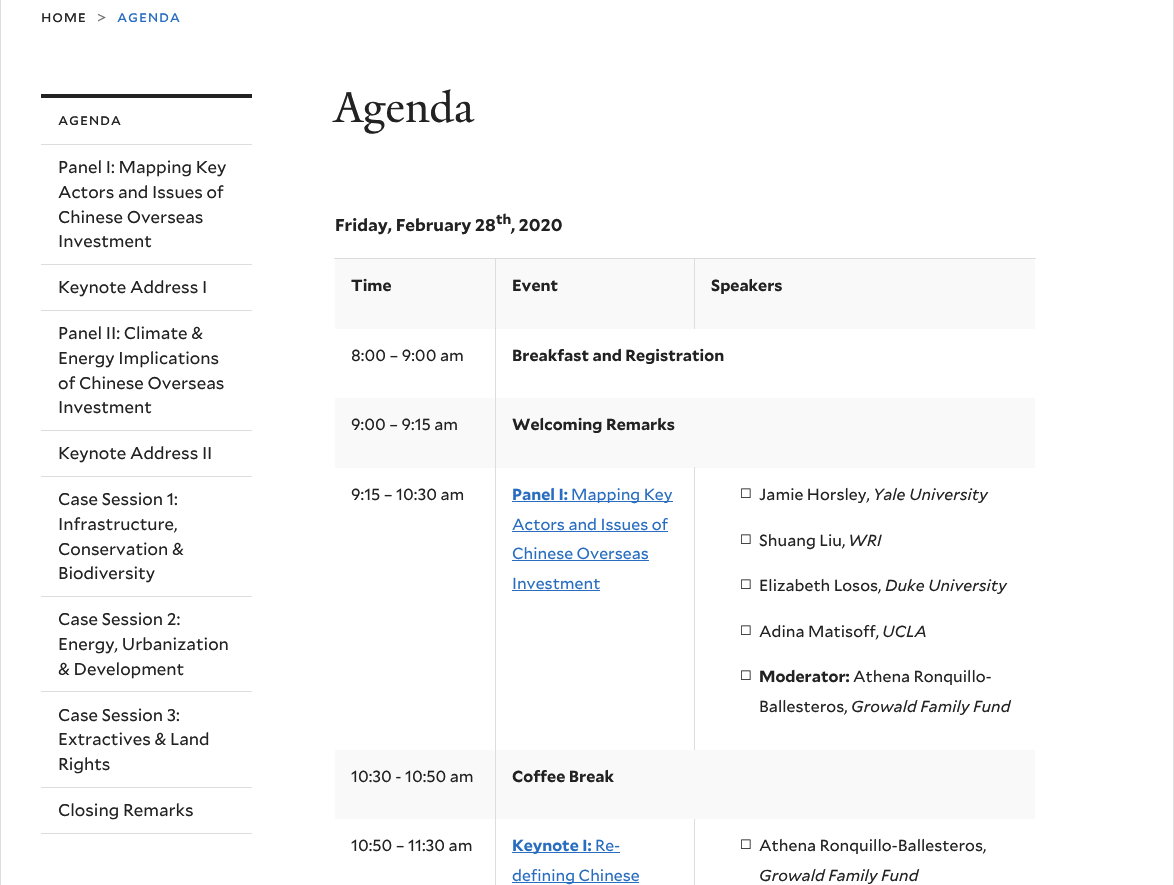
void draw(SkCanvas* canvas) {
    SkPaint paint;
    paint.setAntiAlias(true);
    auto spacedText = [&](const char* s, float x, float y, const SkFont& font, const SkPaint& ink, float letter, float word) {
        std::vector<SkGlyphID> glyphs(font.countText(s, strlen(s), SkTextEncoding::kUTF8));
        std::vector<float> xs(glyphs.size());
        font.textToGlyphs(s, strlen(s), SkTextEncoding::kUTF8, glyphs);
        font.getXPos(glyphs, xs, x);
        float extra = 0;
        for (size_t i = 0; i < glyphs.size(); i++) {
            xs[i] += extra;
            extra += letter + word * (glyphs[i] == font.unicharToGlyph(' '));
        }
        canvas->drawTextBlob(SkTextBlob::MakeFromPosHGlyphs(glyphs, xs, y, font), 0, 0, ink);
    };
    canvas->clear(0xFFFFFFFF);
    paint.setColor(0xFFDDDDDD);
    canvas->drawRect(SkRect::MakeXYWH(1173, 0, 1, 885), paint);
    canvas->drawRect(SkRect::MakeXYWH(0, 0, 1, 885), paint);
    SkFont font1(fontMgr->matchFamilyStyle("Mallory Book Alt", SkFontStyle::Normal()), 15.5f);
    font1.setSubpixel(true);
    paint.setColor(0xFF222222);
    spacedText("home", 41, 22, font1, paint, 0.75f, 0);
    SkFont font2(fontMgr->matchFamilyStyle("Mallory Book", SkFontStyle::Normal()), 15.5f);
    font2.setSubpixel(true);
    paint.setColor(0xFF767676);
    spacedText(">", 97, 23, font2, paint, 0.75f, 0);
    paint.setColor(0xFF286DC0);
    spacedText("agenda", 117, 22, font1, paint, 0.75f, 0);
    paint.setColor(0xFF222222);
    canvas->drawRect(SkRect::MakeXYWH(41, 94, 211, 4), paint);
    spacedText("agenda", 58, 125, font1, paint, 0.75f, 0);
    paint.setColor(0xFFDDDDDD);
    canvas->drawRect(SkRect::MakeXYWH(41, 144, 211, 1), paint);
    canvas->drawRect(SkRect::MakeXYWH(41, 264, 211, 1), paint);
    SkFont font3(fontMgr->matchFamilyStyle("Mallory Book", SkFontStyle::Normal()), 17);
    font3.setSubpixel(true);
    paint.setColor(0xFF222222);
    canvas->drawString("Panel I: Mapping Key", 58, 173, font3, paint);
    canvas->drawString("Actors and Issues of", 58, 198, font3, paint);
    canvas->drawString("Chinese Overseas", 58, 223, font3, paint);
    canvas->drawString("Investment", 58, 247, font3, paint);
    paint.setColor(0xFFDDDDDD);
    canvas->drawRect(SkRect::MakeXYWH(41, 310, 211, 1), paint);
    paint.setColor(0xFF222222);
    canvas->drawString("Keynote Address I", 58, 293, font3, paint);
    paint.setColor(0xFFDDDDDD);
    canvas->drawRect(SkRect::MakeXYWH(41, 430, 211, 1), paint);
    paint.setColor(0xFF222222);
    canvas->drawString("Panel II: Climate &", 58, 339, font3, paint);
    canvas->drawString("Energy Implications", 58, 364, font3, paint);
    canvas->drawString("of Chinese Overseas", 58, 389, font3, paint);
    canvas->drawString("Investment", 58, 413, font3, paint);
    paint.setColor(0xFFDDDDDD);
    canvas->drawRect(SkRect::MakeXYWH(41, 476, 211, 1), paint);
    paint.setColor(0xFF222222);
    canvas->drawString("Keynote Address II", 58, 459, font3, paint);
    paint.setColor(0xFFDDDDDD);
    canvas->drawRect(SkRect::MakeXYWH(41, 596, 211, 1), paint);
    paint.setColor(0xFF222222);
    canvas->drawString("Case Session 1:", 58, 505, font3, paint);
    canvas->drawString("Infrastructure,", 58, 530, font3, paint);
    canvas->drawString("Conservation &", 58, 555, font3, paint);
    canvas->drawString("Biodiversity", 58, 579, font3, paint);
    paint.setColor(0xFFDDDDDD);
    canvas->drawRect(SkRect::MakeXYWH(41, 691, 211, 1), paint);
    paint.setColor(0xFF222222);
    canvas->drawString("Case Session 2:", 58, 625, font3, paint);
    canvas->drawString("Energy, Urbanization", 58, 650, font3, paint);
    canvas->drawString("& Development", 58, 675, font3, paint);
    paint.setColor(0xFFDDDDDD);
    canvas->drawRect(SkRect::MakeXYWH(41, 787, 211, 1), paint);
    paint.setColor(0xFF222222);
    canvas->drawString("Case Session 3:", 58, 721, font3, paint);
    canvas->drawString("Extractives & Land", 58, 745, font3, paint);
    canvas->drawString("Rights", 58, 770, font3, paint);
    paint.setColor(0xFFDDDDDD);
    canvas->drawRect(SkRect::MakeXYWH(41, 833, 211, 1), paint);
    paint.setColor(0xFF222222);
    canvas->drawString("Closing Remarks", 58, 816, font3, paint);
    SkFont font4(fontMgr->matchFamilyStyle("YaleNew", SkFontStyle::Normal()), 46);
    font4.setSubpixel(true);
    canvas->drawString("Agenda", 334, 122, font4, paint);
    SkFont font5(fontMgr->matchFamilyStyle("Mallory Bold", SkFontStyle::Bold()), 17);
    font5.setSubpixel(true);
    canvas->drawString("Friday, February 28", 335, 231, font5, paint);
    SkFont font6(fontMgr->matchFamilyStyle("Mallory Bold", SkFontStyle::Bold()), 14);
    font6.setSubpixel(true);
    canvas->drawString("th", 496, 224, font6, paint);
    canvas->drawString(", 2020", 511, 231, font5, paint);
    paint.setColor(0xFFDDDDDD);
    canvas->drawRect(SkRect::MakeXYWH(334, 258, 702, 1), paint);
    paint.setColor(0xFFF9F9F9);
    canvas->drawRect(SkRect::MakeXYWH(335, 259, 700, 70), paint);
    SkFont font7(fontMgr->matchFamilyStyle("Mallory Bold", SkFontStyle::Bold()), 16);
    font7.setSubpixel(true);
    paint.setColor(0xFF222222);
    canvas->drawString("Time", 351, 291, font7, paint);
    paint.setColor(0xFFDDDDDD);
    canvas->drawRect(SkRect::MakeXYWH(694, 258, 1, 71), paint);
    paint.setColor(0xFF222222);
    canvas->drawString("Event", 512, 291, font7, paint);
    canvas->drawString("Speakers", 711, 291, font7, paint);
    SkFont font8(fontMgr->matchFamilyStyle("Mallory Book", SkFontStyle::Normal()), 16);
    font8.setSubpixel(true);
    canvas->drawString("8:00 – 9:00 am", 351, 361, font8, paint);
    canvas->drawString("Breakfast and Registration", 512, 361, font7, paint);
    paint.setColor(0xFFF9F9F9);
    canvas->drawRect(SkRect::MakeXYWH(335, 398, 700, 70), paint);
    paint.setColor(0xFF222222);
    canvas->drawString("9:00 – 9:15 am", 351, 430, font8, paint);
    canvas->drawString("Welcoming Remarks", 512, 430, font7, paint);
    canvas->drawString("9:15 – 10:30 am", 351, 500, font8, paint);
    paint.setColor(0xFFDDDDDD);
    canvas->drawRect(SkRect::MakeXYWH(694, 467, 1, 283), paint);
    paint.setColor(0xFF286DC0);
    canvas->drawString("Panel I:", 512, 500, font7, paint);
    canvas->drawRect(SkRect::MakeXYWH(512, 501, 161, 1), paint);
    canvas->drawString("Mapping Key", 571, 500, font8, paint);
    canvas->drawString("Actors and Issues of", 512, 530, font8, paint);
    canvas->drawRect(SkRect::MakeXYWH(512, 531, 156, 1), paint);
    canvas->drawString("Chinese Overseas", 512, 559, font8, paint);
    canvas->drawRect(SkRect::MakeXYWH(512, 560, 137, 1), paint);
    canvas->drawString("Investment", 512, 589, font8, paint);
    canvas->drawRect(SkRect::MakeXYWH(512, 590, 88, 1), paint);
    SkFont font9(fontMgr->matchFamilyStyle("DejaVu Sans", SkFontStyle::Normal()), 13);
    font9.setSubpixel(true);
    paint.setColor(0xFF222222);
    canvas->drawString("☐", 740, 498, font9, paint);
    canvas->drawString("Jamie Horsley,", 759, 500, font8, paint);
    SkFont font10(fontMgr->matchFamilyStyle("Mallory Book", SkFontStyle::Italic()), 16);
    font10.setSubpixel(true);
    canvas->drawString("Yale University", 873, 500, font10, paint);
    canvas->drawString("☐", 740, 544, font9, paint);
    canvas->drawString("Shuang Liu,", 759, 546, font8, paint);
    canvas->drawString("WRI", 848, 546, font10, paint);
    canvas->drawString("☐", 740, 589, font9, paint);
    canvas->drawString("Elizabeth Losos,", 759, 591, font8, paint);
    canvas->drawString("Duke University", 885, 591, font10, paint);
    canvas->drawString("☐", 740, 635, font9, paint);
    canvas->drawString("Adina Matisoff,", 759, 637, font8, paint);
    canvas->drawString("UCLA", 882, 637, font10, paint);
    canvas->drawString("☐", 740, 680, font9, paint);
    canvas->drawString("Moderator:", 759, 682, font7, paint);
    canvas->drawString("Athena Ronquillo-", 853, 682, font8, paint);
    canvas->drawString("Ballesteros,", 759, 712, font8, paint);
    canvas->drawString("Growald Family Fund", 851, 712, font10, paint);
    paint.setColor(0xFFF9F9F9);
    canvas->drawRect(SkRect::MakeXYWH(335, 750, 700, 69), paint);
    paint.setColor(0xFF222222);
    canvas->drawString("10:30 - 10:50 am", 351, 782, font8, paint);
    canvas->drawString("Coffee Break", 512, 782, font7, paint);
    paint.setColor(0xFFDDDDDD);
    canvas->drawRect(SkRect::MakeXYWH(495, 258, 1, 627), paint);
    paint.setColor(0xFF222222);
    canvas->drawString("10:50 – 11:30 am", 351, 851, font8, paint);
    paint.setColor(0xFFDDDDDD);
    canvas->drawRect(SkRect::MakeXYWH(694, 819, 1, 66), paint);
    paint.setColor(0xFF286DC0);
    canvas->drawRect(SkRect::MakeXYWH(512, 852, 108, 1), paint);
    canvas->drawString("Keynote I:", 512, 851, font7, paint);
    canvas->drawString("Re-", 595, 851, font8, paint);
    canvas->drawRect(SkRect::MakeXYWH(512, 882, 127, 1), paint);
    canvas->drawString("defining Chinese", 512, 881, font8, paint);
    paint.setColor(0xFF222222);
    canvas->drawString("☐", 740, 849, font9, paint);
    canvas->drawString("Athena Ronquillo-Ballesteros,", 759, 851, font8, paint);
    canvas->drawString("Growald Family Fund", 759, 881, font10, paint);
}
